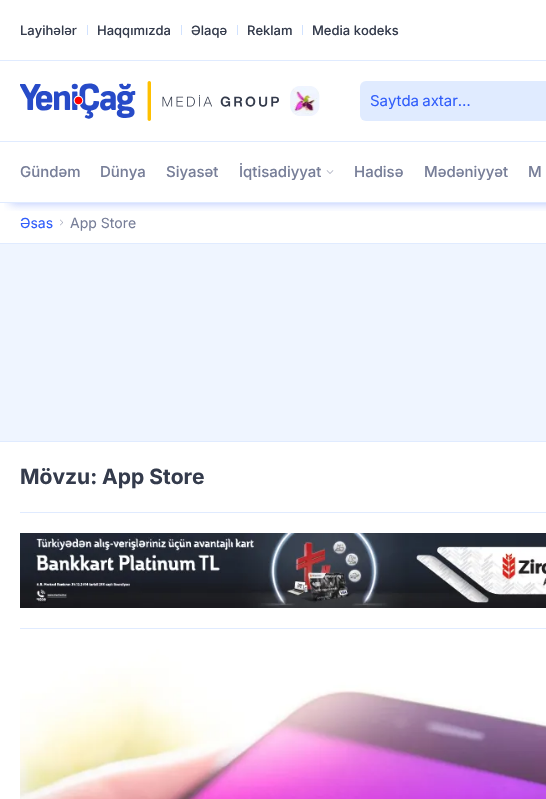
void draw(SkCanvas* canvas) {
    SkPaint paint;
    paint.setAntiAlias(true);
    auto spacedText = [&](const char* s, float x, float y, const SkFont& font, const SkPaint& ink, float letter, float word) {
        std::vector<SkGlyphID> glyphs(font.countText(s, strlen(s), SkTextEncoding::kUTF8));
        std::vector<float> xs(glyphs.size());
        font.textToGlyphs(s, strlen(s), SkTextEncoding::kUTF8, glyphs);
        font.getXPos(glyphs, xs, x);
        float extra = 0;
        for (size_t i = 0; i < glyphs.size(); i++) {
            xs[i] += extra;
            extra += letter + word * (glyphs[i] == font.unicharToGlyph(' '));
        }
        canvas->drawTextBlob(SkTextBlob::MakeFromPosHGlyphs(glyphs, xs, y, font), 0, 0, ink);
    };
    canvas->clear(0xFFFFFFFF);
    canvas->save();
    canvas->clipRect(SkRect::MakeXYWH(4, 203, 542, 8));
    paint.setColor(0x66315EFB);
    paint.setMaskFilter(SkMaskFilter::MakeBlur(kNormal_SkBlurStyle, 5));
    canvas->drawRect(SkRect::MakeXYWH(10, 20, 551, 183), paint);
    paint.setMaskFilter(nullptr);
    canvas->restore();
    paint.setColor(0xFFE0EBFF);
    canvas->drawRect(SkRect::MakeXYWH(0, 60, 546, 1), paint);
    SkFont font1(fontMgr->matchFamilyStyle("Inter", SkFontStyle(500, SkFontStyle::kNormal_Width, SkFontStyle::kUpright_Slant)), 13);
    font1.setSubpixel(true);
    paint.setColor(0xFF343B4C);
    canvas->drawString("Layihələr", 20, 35, font1, paint);
    paint.setColor(0xFFD1E2FF);
    canvas->drawRect(SkRect::MakeXYWH(87, 25, 1, 10), paint);
    paint.setColor(0xFF343B4C);
    canvas->drawString("Haqqımızda", 97, 35, font1, paint);
    paint.setColor(0xFFD1E2FF);
    canvas->drawRect(SkRect::MakeXYWH(181, 25, 1, 10), paint);
    paint.setColor(0xFF343B4C);
    canvas->drawString("Əlaqə", 191, 35, font1, paint);
    paint.setColor(0xFFD1E2FF);
    canvas->drawRect(SkRect::MakeXYWH(237, 25, 1, 10), paint);
    paint.setColor(0xFF343B4C);
    canvas->drawString("Reklam", 247, 35, font1, paint);
    paint.setColor(0xFFD1E2FF);
    canvas->drawRect(SkRect::MakeXYWH(302, 25, 1, 10), paint);
    paint.setColor(0xFF343B4C);
    canvas->drawString("Media kodeks", 312, 35, font1, paint);
    paint.setColor(0xFFE0EBFF);
    canvas->drawRect(SkRect::MakeXYWH(0, 141, 546, 1), paint);
    canvas->drawImageRect(SkImages::DeferredFromEncodedData(SkData::MakeFromFileName("img1.png")), SkRect::MakeXYWH(20, 81, 259, 40), SkSamplingOptions());
    canvas->drawImageRect(SkImages::DeferredFromEncodedData(SkData::MakeFromFileName("img2.png")), SkRect::MakeXYWH(290, 86, 30, 30), SkSamplingOptions());
    canvas->drawRoundRect(SkRect::MakeXYWH(360, 81, 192, 40), 6, 6, paint);
    SkFont font2(fontMgr->matchFamilyStyle("Inter", SkFontStyle::Normal()), 15);
    font2.setSubpixel(true);
    paint.setColor(0xFF315EFB);
    spacedText("Saytda axtar…", 370, 106, font2, paint, 0, -1);
    paint.setColor(0xFFE0EBFF);
    canvas->drawRect(SkRect::MakeXYWH(0, 202, 546, 1), paint);
    SkFont font3(fontMgr->matchFamilyStyle("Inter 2", SkFontStyle(500, SkFontStyle::kNormal_Width, SkFontStyle::kUpright_Slant)), 15);
    font3.setSubpixel(true);
    paint.setColor(0xFF777E98);
    canvas->drawString("Gündəm", 20, 177, font3, paint);
    canvas->drawString("Dünya", 100, 177, font3, paint);
    canvas->drawString("Siyasət", 166, 177, font3, paint);
    canvas->drawString("İqtisadiyyat", 239, 177, font3, paint);
    canvas->drawImageRect(SkImages::DeferredFromEncodedData(SkData::MakeFromFileName("img3.png")), SkRect::MakeXYWH(326, 170, 8, 4), SkSamplingOptions());
    canvas->drawString("Hadisə", 354, 177, font3, paint);
    canvas->drawString("Mədəniyyət", 424, 177, font3, paint);
    canvas->drawString("M", 528, 177, font3, paint);
    paint.setColor(0xFFE0EBFF);
    canvas->drawRect(SkRect::MakeXYWH(0, 243, 546, 1), paint);
    SkFont font4(fontMgr->matchFamilyStyle("Inter", SkFontStyle::Normal()), 14);
    font4.setSubpixel(true);
    paint.setColor(0xFF315EFB);
    canvas->drawString("Əsas", 20, 228, font4, paint);
    canvas->drawImageRect(SkImages::DeferredFromEncodedData(SkData::MakeFromFileName("img4.png")), SkRect::MakeXYWH(60, 219, 3, 7), SkSamplingOptions());
    paint.setColor(0xFF777E98);
    canvas->drawString("App Store", 70, 228, font4, paint);
    paint.setColor(0xFFEFF5FF);
    canvas->drawRect(SkRect::MakeXYWH(0, 244, 546, 197), paint);
    paint.setColor(0xFFE0EBFF);
    canvas->drawRect(SkRect::MakeXYWH(0, 441, 546, 1), paint);
    SkFont font5(fontMgr->matchFamilyStyle("Inter", SkFontStyle::Bold()), 21);
    font5.setSubpixel(true);
    paint.setColor(0xFF343B4C);
    canvas->drawString("Mövzu: App Store", 20, 484, font5, paint);
    paint.setColor(0xFFE0EBFF);
    canvas->drawRect(SkRect::MakeXYWH(20, 512, 526, 1), paint);
    canvas->drawRect(SkRect::MakeXYWH(20, 628, 526, 1), paint);
    canvas->drawImageRect(SkImages::DeferredFromEncodedData(SkData::MakeFromFileName("img5.png")), SkRect::MakeXYWH(20, 533, 526, 75), SkSamplingOptions());
    canvas->drawImageRect(SkImages::DeferredFromEncodedData(SkData::MakeFromFileName("img6.png")), SkRect::MakeXYWH(20, 649, 526, 150), SkSamplingOptions());
}
